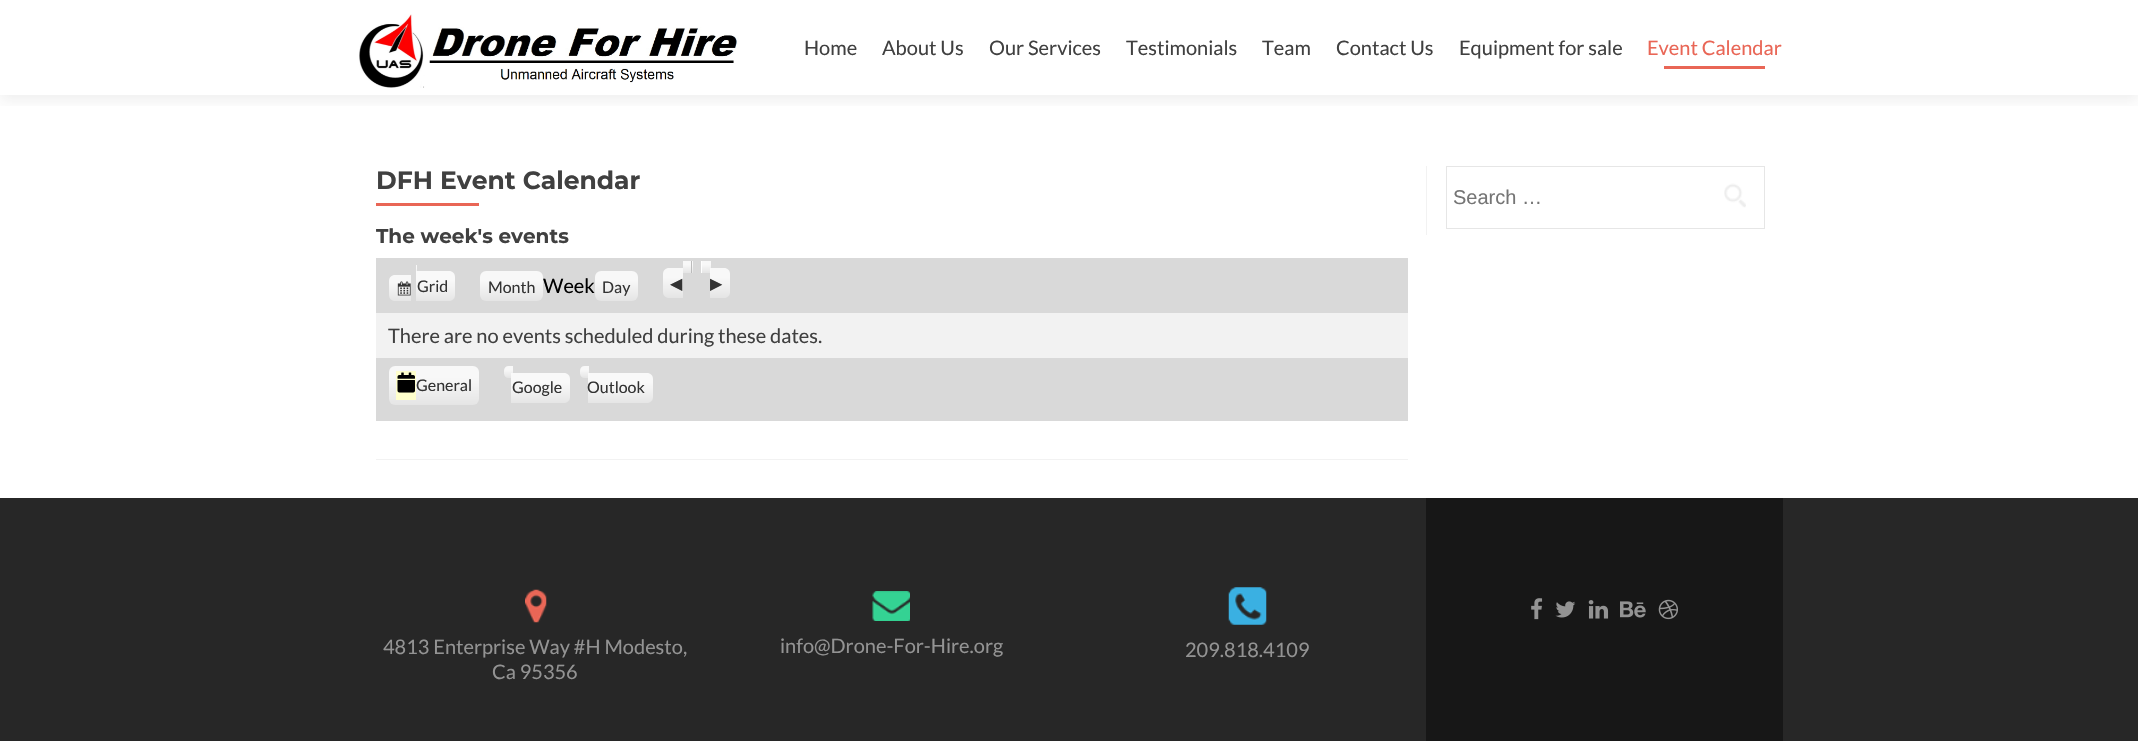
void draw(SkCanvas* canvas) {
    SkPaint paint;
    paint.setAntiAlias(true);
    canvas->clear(0xFFFFFFFF);
    canvas->save();
    canvas->clipRect(SkRect::MakeXYWH(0, 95, 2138, 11));
    paint.setColor(0x14323232);
    paint.setMaskFilter(SkMaskFilter::MakeBlur(kNormal_SkBlurStyle, 7));
    canvas->drawRect(SkRect::MakeXYWH(0, 6, 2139, 95), paint);
    paint.setMaskFilter(nullptr);
    canvas->restore();
    canvas->drawImageRect(SkImages::DeferredFromEncodedData(SkData::MakeFromFileName("img1.png")), SkRect::MakeXYWH(359, 14, 380, 74), SkSamplingOptions());
    SkFont font1(fontMgr->matchFamilyStyle("Lato", SkFontStyle::Normal()), 20);
    font1.setSubpixel(true);
    paint.setColor(0xFF404040);
    canvas->drawString("Home", 804, 55, font1, paint);
    canvas->drawString("About Us", 882, 55, font1, paint);
    canvas->drawString("Our Services", 989, 55, font1, paint);
    canvas->drawString("Testimonials", 1126, 55, font1, paint);
    canvas->drawString("Team", 1262, 55, font1, paint);
    canvas->drawString("Contact Us", 1336, 55, font1, paint);
    canvas->drawString("Equipment for sale", 1459, 55, font1, paint);
    paint.setColor(0xFFE96656);
    canvas->drawString("Event Calendar", 1647, 55, font1, paint);
    canvas->drawRect(SkRect::MakeXYWH(1664, 66, 101, 3), paint);
    paint.setColor(0xFFF2F2F2);
    canvas->drawRect(SkRect::MakeXYWH(376, 459, 1032, 1), paint);
    SkFont font2(fontMgr->matchFamilyStyle("Montserrat", SkFontStyle(100, SkFontStyle::kNormal_Width, SkFontStyle::kUpright_Slant)), 25);
    font2.setSubpixel(true);
    paint.setColor(0xFF404040);
    canvas->drawString("DFH Event Calendar", 376, 189, font2, paint);
    paint.setColor(0xFFE96656);
    canvas->drawRect(SkRect::MakeXYWH(376, 203, 103, 3), paint);
    SkFont font3(fontMgr->matchFamilyStyle("Montserrat", SkFontStyle(100, SkFontStyle::kNormal_Width, SkFontStyle::kUpright_Slant)), 20);
    font3.setSubpixel(true);
    paint.setColor(0xFF404040);
    canvas->drawString("The week's events", 376, 243, font3, paint);
    paint.setColor(0xFFD9D9D9);
    canvas->drawRect(SkRect::MakeXYWH(376, 258, 1032, 55), paint);
    {
        const SkColor colors[] = {0xFFE5E5E5, 0xFFF8F8F8};
        const float stops[] = {0, 0.7f};
        const SkPoint ends[] = {{400, 301}, {400, 275}};
        paint.setShader(SkGradientShader::MakeLinear(ends, colors, stops, 2, SkTileMode::kClamp));
        paint.setAlpha(255);
    }
    canvas->drawPath(SkPathBuilder().moveTo(395, 275).lineTo(411, 275).lineTo(411, 301).lineTo(395, 301).cubicTo(391.5f, 301, 389, 298.5f, 389, 295).lineTo(389, 281).cubicTo(389, 277.5f, 391.5f, 275, 395, 275).close().detach(), paint);
    canvas->drawImageRect(SkImages::DeferredFromEncodedData(SkData::MakeFromFileName("img2.png")), SkRect::MakeXYWH(397, 281, 14, 15), SkSamplingOptions());
    {
        const SkColor colors[] = {0xFFE5E5E5, 0xFFF8F8F8};
        const float stops[] = {0, 0.7f};
        const SkPoint ends[] = {{417, 276}, {417, 265}};
        paint.setShader(SkGradientShader::MakeLinear(ends, colors, stops, 2, SkTileMode::kClamp));
        paint.setAlpha(255);
    }
    canvas->drawRect(SkRect::MakeXYWH(416, 265, 1, 11), paint);
    {
        const SkColor colors[] = {0xF2E6E6E6, 0xF2FAFAFA};
        const float stops[] = {0, 0.7f};
        const SkPoint ends[] = {{436, 301}, {436, 271}};
        paint.setShader(SkGradientShader::MakeLinear(ends, colors, stops, 2, SkTileMode::kClamp));
        paint.setAlpha(255);
    }
    canvas->drawPath(SkPathBuilder().moveTo(416, 271).lineTo(449, 271).cubicTo(452.5f, 271, 455, 273.5f, 455, 277).lineTo(455, 295).cubicTo(455, 298.5f, 452.5f, 301, 449, 301).lineTo(416, 301).close().detach(), paint);
    SkFont font4(fontMgr->matchFamilyStyle("Lato", SkFontStyle::Normal()), 16);
    font4.setSubpixel(true);
    paint.setShader(nullptr);
    paint.setColor(0xFF333333);
    canvas->drawString("Grid", 417, 292, font4, paint);
    {
        const SkColor colors[] = {0xFFE5E5E5, 0xFFF8F8F8};
        const float stops[] = {0, 0.7f};
        const SkPoint ends[] = {{511, 301}, {511, 271}};
        paint.setShader(SkGradientShader::MakeLinear(ends, colors, stops, 2, SkTileMode::kClamp));
        paint.setAlpha(255);
    }
    canvas->drawRoundRect(SkRect::MakeXYWH(480, 271, 63, 30), 6, 6, paint);
    paint.setShader(nullptr);
    paint.setColor(0xFF333333);
    canvas->drawString("Month", 488, 293, font4, paint);
    paint.setColor(0xFF000000);
    canvas->drawString("Week", 543, 293, font1, paint);
    {
        const SkColor colors[] = {0xFFE5E5E5, 0xFFF8F8F8};
        const float stops[] = {0, 0.7f};
        const SkPoint ends[] = {{616, 301}, {616, 271}};
        paint.setShader(SkGradientShader::MakeLinear(ends, colors, stops, 2, SkTileMode::kClamp));
        paint.setAlpha(255);
    }
    canvas->drawRoundRect(SkRect::MakeXYWH(595, 271, 43, 30), 6, 6, paint);
    paint.setShader(nullptr);
    paint.setColor(0xFF333333);
    canvas->drawString("Day", 602, 293, font4, paint);
    {
        const SkColor colors[] = {0xFFE5E5E5, 0xFFF8F8F8};
        const float stops[] = {0, 0.7f};
        const SkPoint ends[] = {{673, 298}, {673, 268}};
        paint.setShader(SkGradientShader::MakeLinear(ends, colors, stops, 2, SkTileMode::kClamp));
        paint.setAlpha(255);
    }
    canvas->drawPath(SkPathBuilder().moveTo(669, 268).lineTo(683, 268).lineTo(683, 298).lineTo(669, 298).cubicTo(665.5f, 298, 663, 295.5f, 663, 292).lineTo(663, 274).cubicTo(663, 270.5f, 665.5f, 268, 669, 268).close().detach(), paint);
    SkFont font5(fontMgr->matchFamilyStyle("DejaVu Sans", SkFontStyle::Normal()), 16);
    font5.setSubpixel(true);
    paint.setShader(nullptr);
    paint.setColor(0xFF333333);
    canvas->drawString("◀", 670, 289, font5, paint);
    {
        const SkColor colors[] = {0xFFE5E5E5, 0xFFF8F8F8};
        const float stops[] = {0, 0.7f};
        const SkPoint ends[] = {{687, 273}, {687, 261}};
        paint.setShader(SkGradientShader::MakeLinear(ends, colors, stops, 2, SkTileMode::kClamp));
        paint.setAlpha(255);
    }
    canvas->drawRect(SkRect::MakeXYWH(683, 261, 10, 12), paint);
    paint.setShader(nullptr);
    paint.setColor(0xFFBBBBBB);
    canvas->drawRect(SkRect::MakeXYWH(691, 261, 1, 12), paint);
    {
        const SkColor colors[] = {0xFFE5E5E5, 0xFFF8F8F8};
        const float stops[] = {0, 0.7f};
        const SkPoint ends[] = {{707, 273}, {707, 261}};
        paint.setShader(SkGradientShader::MakeLinear(ends, colors, stops, 2, SkTileMode::kClamp));
        paint.setAlpha(255);
    }
    canvas->drawRect(SkRect::MakeXYWH(702, 261, 9, 12), paint);
    {
        const SkColor colors[] = {0xF2E6E6E6, 0xF2FAFAFA};
        const float stops[] = {0, 0.7f};
        const SkPoint ends[] = {{720, 298}, {720, 268}};
        paint.setShader(SkGradientShader::MakeLinear(ends, colors, stops, 2, SkTileMode::kClamp));
        paint.setAlpha(255);
    }
    canvas->drawPath(SkPathBuilder().moveTo(710, 268).lineTo(724, 268).cubicTo(727.5f, 268, 730, 270.5f, 730, 274).lineTo(730, 292).cubicTo(730, 295.5f, 727.5f, 298, 724, 298).lineTo(710, 298).close().detach(), paint);
    paint.setShader(nullptr);
    paint.setColor(0xFF333333);
    canvas->drawString("▶", 710, 289, font5, paint);
    paint.setColor(0xFFFFFFFF);
    canvas->drawRect(SkRect::MakeXYWH(701, 261, 1, 12), paint);
    paint.setColor(0xFFF2F2F2);
    canvas->drawRect(SkRect::MakeXYWH(376, 313, 1032, 45), paint);
    paint.setColor(0xFF404040);
    canvas->drawString("There are no events scheduled during these dates.", 388, 343, font1, paint);
    paint.setColor(0xFFD9D9D9);
    canvas->drawRect(SkRect::MakeXYWH(376, 358, 1032, 63), paint);
    {
        const SkColor colors[] = {0xFFE5E5E5, 0xFFF8F8F8};
        const float stops[] = {0, 0.7f};
        const SkPoint ends[] = {{434, 405}, {434, 366}};
        paint.setShader(SkGradientShader::MakeLinear(ends, colors, stops, 2, SkTileMode::kClamp));
        paint.setAlpha(255);
    }
    canvas->drawRoundRect(SkRect::MakeXYWH(389, 366, 90, 39), 6, 6, paint);
    paint.setShader(nullptr);
    paint.setColor(0xFFFFFFCC);
    canvas->drawRect(SkRect::MakeXYWH(396, 371, 20, 29), paint);
    canvas->drawImageRect(SkImages::DeferredFromEncodedData(SkData::MakeFromFileName("img3.png")), SkRect::MakeXYWH(397, 372, 18, 21), SkSamplingOptions());
    paint.setColor(0xFF333333);
    canvas->drawString("General", 416, 391, font4, paint);
    {
        const SkColor colors[] = {0xFFE5E5E5, 0xFFF8F8F8};
        const float stops[] = {0, 0.7f};
        const SkPoint ends[] = {{508, 378}, {508, 366}};
        paint.setShader(SkGradientShader::MakeLinear(ends, colors, stops, 2, SkTileMode::kClamp));
        paint.setAlpha(255);
    }
    canvas->drawPath(SkPathBuilder().moveTo(508.5f, 366).lineTo(513, 366).lineTo(513, 378).lineTo(508.5f, 378).cubicTo(506, 378, 504, 376, 504, 373.5f).lineTo(504, 370.5f).cubicTo(504, 368, 506, 366, 508.5f, 366).close().detach(), paint);
    {
        const SkColor colors[] = {0xF2E6E6E6, 0xF2FAFAFA};
        const float stops[] = {0, 0.7f};
        const SkPoint ends[] = {{541, 403}, {541, 373}};
        paint.setShader(SkGradientShader::MakeLinear(ends, colors, stops, 2, SkTileMode::kClamp));
        paint.setAlpha(255);
    }
    canvas->drawPath(SkPathBuilder().moveTo(511, 373).lineTo(564, 373).cubicTo(567.5f, 373, 570, 375.5f, 570, 379).lineTo(570, 397).cubicTo(570, 400.5f, 567.5f, 403, 564, 403).lineTo(511, 403).close().detach(), paint);
    paint.setShader(nullptr);
    paint.setColor(0xFF333333);
    canvas->drawString("Google", 512, 393, font4, paint);
    {
        const SkColor colors[] = {0xFFE5E5E5, 0xFFF8F8F8};
        const float stops[] = {0, 0.7f};
        const SkPoint ends[] = {{584, 378}, {584, 366}};
        paint.setShader(SkGradientShader::MakeLinear(ends, colors, stops, 2, SkTileMode::kClamp));
        paint.setAlpha(255);
    }
    canvas->drawPath(SkPathBuilder().moveTo(584.5f, 366).lineTo(589, 366).lineTo(589, 378).lineTo(584.5f, 378).cubicTo(582, 378, 580, 376, 580, 373.5f).lineTo(580, 370.5f).cubicTo(580, 368, 582, 366, 584.5f, 366).close().detach(), paint);
    {
        const SkColor colors[] = {0xF2E6E6E6, 0xF2FAFAFA};
        const float stops[] = {0, 0.7f};
        const SkPoint ends[] = {{620, 403}, {620, 373}};
        paint.setShader(SkGradientShader::MakeLinear(ends, colors, stops, 2, SkTileMode::kClamp));
        paint.setAlpha(255);
    }
    canvas->drawPath(SkPathBuilder().moveTo(588, 373).lineTo(647, 373).cubicTo(650.5f, 373, 653, 375.5f, 653, 379).lineTo(653, 397).cubicTo(653, 400.5f, 650.5f, 403, 647, 403).lineTo(588, 403).close().detach(), paint);
    paint.setShader(nullptr);
    paint.setColor(0xFF333333);
    canvas->drawString("Outlook", 587, 393, font4, paint);
    paint.setColor(0xFFF2F2F2);
    canvas->drawRect(SkRect::MakeXYWH(1426, 166, 1, 69), paint);
    paint.setStyle(SkPaint::kStroke_Style);
    paint.setStrokeWidth(1);
    paint.setColor(0xFFE6E6E6);
    canvas->drawRect(SkRect::MakeXYWH(1446.5f, 166.5f, 318, 62), paint);
    SkFont font6(fontMgr->matchFamilyStyle("Liberation Sans", SkFontStyle::Normal()), 20);
    font6.setSubpixel(true);
    paint.setStyle(SkPaint::kFill_Style);
    paint.setColor(0xFF757575);
    canvas->drawString("Search …", 1453, 204, font6, paint);
    canvas->drawImageRect(SkImages::DeferredFromEncodedData(SkData::MakeFromFileName("img4.png")), SkRect::MakeXYWH(1724, 183, 22, 25), SkSamplingOptions());
    paint.setColor(0xFF272727);
    canvas->drawRect(SkRect::MakeXYWH(0, 498, 2138, 243), paint);
    canvas->drawImageRect(SkImages::DeferredFromEncodedData(SkData::MakeFromFileName("img5.png")), SkRect::MakeXYWH(525, 589, 22, 34), SkSamplingOptions());
    paint.setColor(0xFF939393);
    canvas->drawString("4813 Enterprise Way #H Modesto,", 383, 654, font1, paint);
    canvas->drawString("Ca 95356", 492, 679, font1, paint);
    canvas->drawImageRect(SkImages::DeferredFromEncodedData(SkData::MakeFromFileName("img6.png")), SkRect::MakeXYWH(872, 591, 38, 30), SkSamplingOptions());
    canvas->drawString("info@Drone-For-Hire.org", 780, 653, font1, paint);
    canvas->drawImageRect(SkImages::DeferredFromEncodedData(SkData::MakeFromFileName("img7.png")), SkRect::MakeXYWH(1228, 587, 39, 38), SkSamplingOptions());
    canvas->drawString("209.818.4109", 1185, 657, font1, paint);
    paint.setColor(0xFF171717);
    canvas->drawRect(SkRect::MakeXYWH(1426, 498, 357, 243), paint);
    canvas->drawImageRect(SkImages::DeferredFromEncodedData(SkData::MakeFromFileName("img8.png")), SkRect::MakeXYWH(1531, 598, 12, 22), SkSamplingOptions());
    canvas->drawImageRect(SkImages::DeferredFromEncodedData(SkData::MakeFromFileName("img9.png")), SkRect::MakeXYWH(1555, 601, 21, 17), SkSamplingOptions());
    canvas->drawImageRect(SkImages::DeferredFromEncodedData(SkData::MakeFromFileName("img10.png")), SkRect::MakeXYWH(1588, 600, 21, 19), SkSamplingOptions());
    canvas->drawImageRect(SkImages::DeferredFromEncodedData(SkData::MakeFromFileName("img11.png")), SkRect::MakeXYWH(1620, 601, 26, 17), SkSamplingOptions());
    canvas->drawImageRect(SkImages::DeferredFromEncodedData(SkData::MakeFromFileName("img12.png")), SkRect::MakeXYWH(1658, 599, 20, 21), SkSamplingOptions());
}
